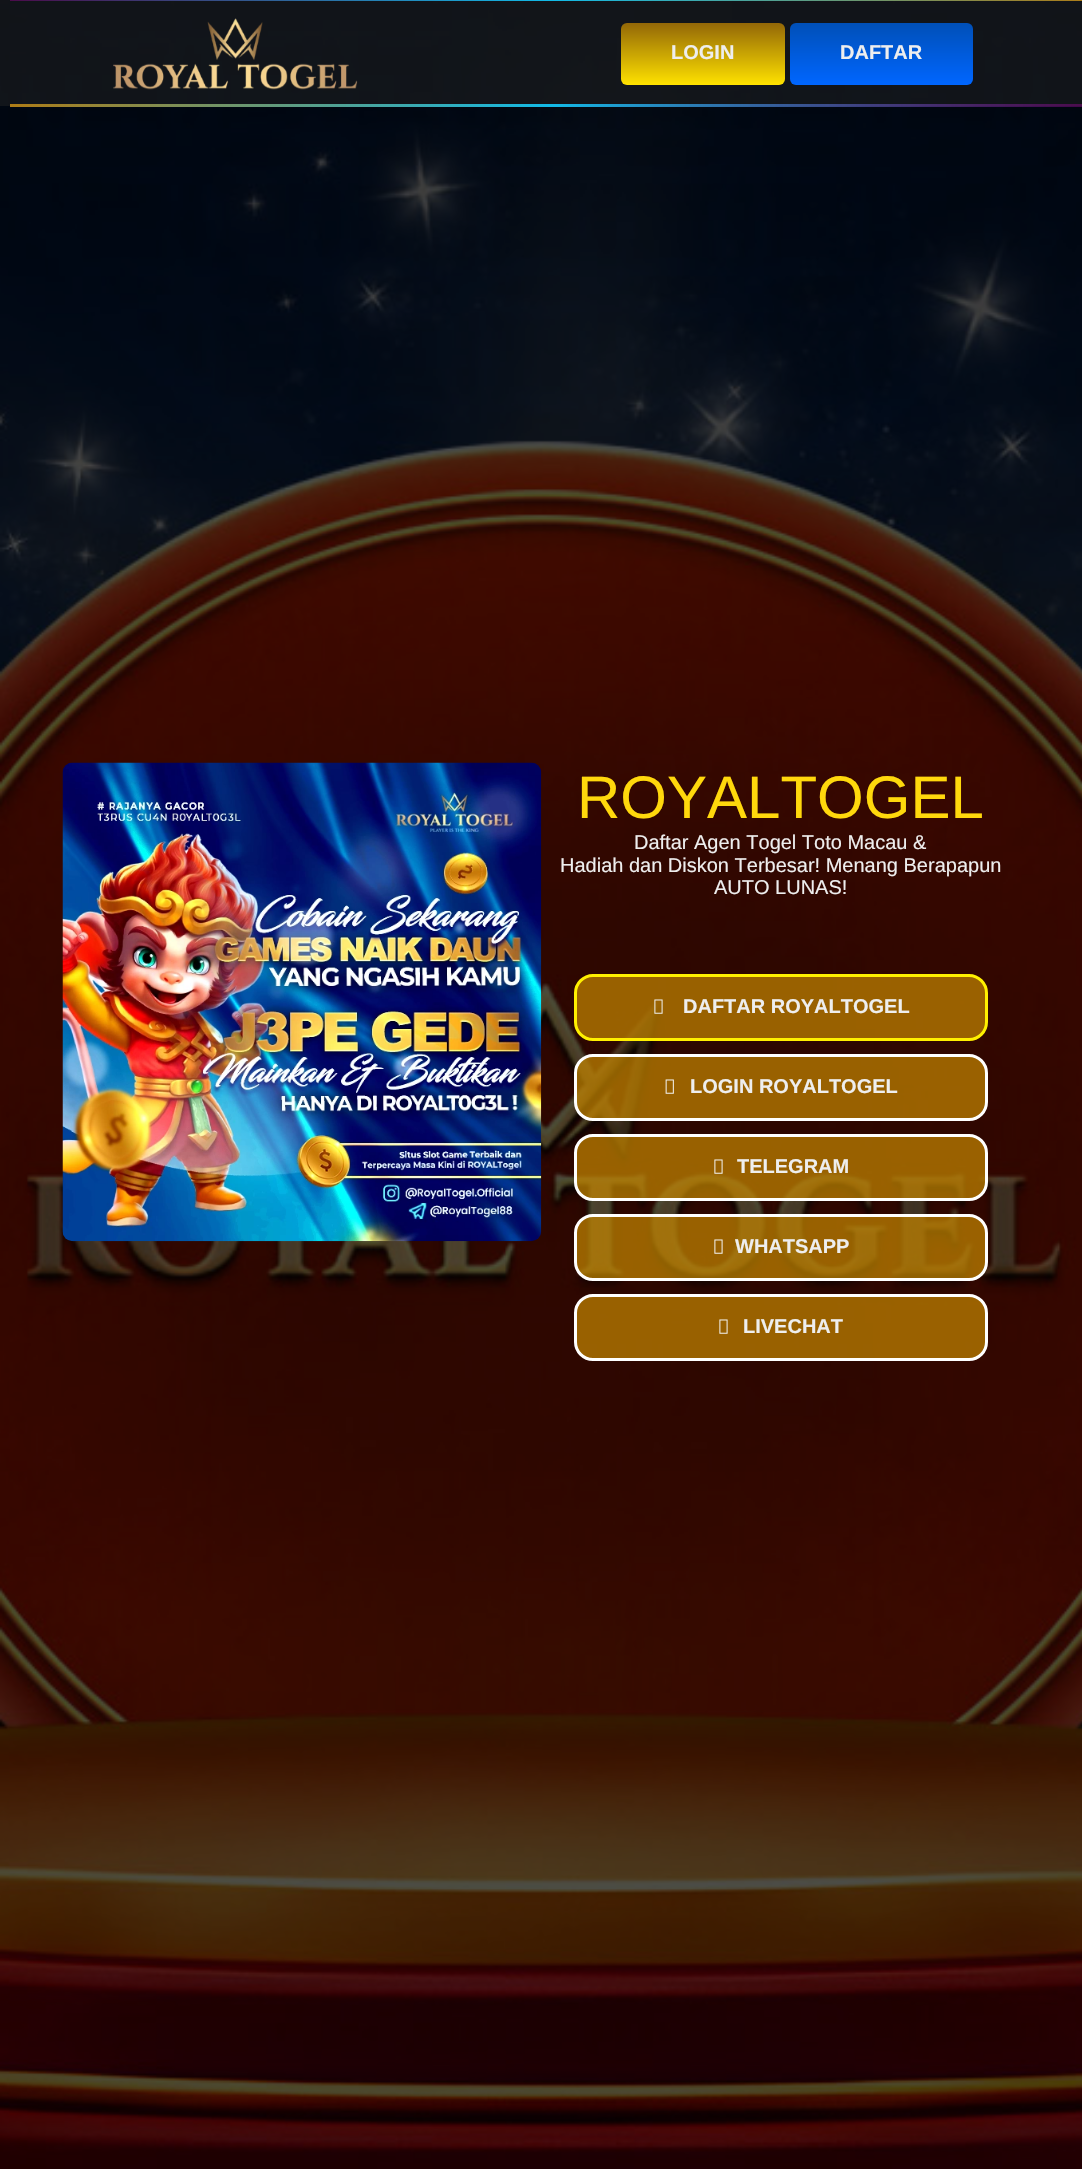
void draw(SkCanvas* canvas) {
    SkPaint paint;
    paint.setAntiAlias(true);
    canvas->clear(0xFFFFFFFF);
    canvas->drawImageRect(SkImages::DeferredFromEncodedData(SkData::MakeFromFileName("img1.png")), SkRect::MakeXYWH(0, 0, 1082, 2169), SkSamplingOptions());
    paint.setColor(0x85212121);
    canvas->drawRect(SkRect::MakeXYWH(0, 0, 1082, 106), paint);
    {
        const SkColor colors[] = {0xFF4B0C4B, 0xFF12BAE7, 0xFFAE7C16};
        const float stops[] = {0, 0.5f, 1};
        const SkPoint ends[] = {{10, 0.6f}, {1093, 0.6f}};
        paint.setShader(SkGradientShader::MakeLinear(ends, colors, stops, 3, SkTileMode::kClamp));
        paint.setAlpha(255);
    }
    canvas->drawRect(SkRect::MakeXYWH(10, 0, 1072, 1), paint);
    canvas->drawImageRect(SkImages::DeferredFromEncodedData(SkData::MakeFromFileName("img2.png")), SkRect::MakeXYWH(113, 18, 245, 72), SkSamplingOptions());
    {
        const SkColor colors[] = {0xFF916507, 0xFFFFE200};
        const float stops[] = {0, 1};
        const SkPoint ends[] = {{703, 22}, {703, 85}};
        paint.setShader(SkGradientShader::MakeLinear(ends, colors, stops, 2, SkTileMode::kClamp));
        paint.setAlpha(255);
    }
    canvas->drawRoundRect(SkRect::MakeXYWH(621, 23, 164, 62), 6, 6, paint);
    SkFont font1(fontMgr->matchFamilyStyle("Liberation Sans", SkFontStyle::Bold()), 20);
    font1.setSubpixel(true);
    paint.setShader(nullptr);
    paint.setColor(0xFFEEEEEE);
    canvas->drawString("LOGIN", 671, 59, font1, paint);
    {
        const SkColor colors[] = {0xFF004FB6, 0xFF0066FF};
        const float stops[] = {0, 1};
        const SkPoint ends[] = {{881, 22}, {881, 85}};
        paint.setShader(SkGradientShader::MakeLinear(ends, colors, stops, 2, SkTileMode::kClamp));
        paint.setAlpha(255);
    }
    canvas->drawRoundRect(SkRect::MakeXYWH(790, 23, 183, 62), 6, 6, paint);
    paint.setShader(nullptr);
    paint.setColor(0xFFEEEEEE);
    canvas->drawString("DAFTAR", 840, 59, font1, paint);
    {
        const SkColor colors[] = {0xFFAE7C16, 0xFF12BAE7, 0x877D0476};
        const float stops[] = {0, 0.5f, 1};
        const SkPoint ends[] = {{10, 105}, {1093, 105}};
        paint.setShader(SkGradientShader::MakeLinear(ends, colors, stops, 3, SkTileMode::kClamp));
        paint.setAlpha(255);
    }
    canvas->drawRect(SkRect::MakeXYWH(10, 104, 1072, 3), paint);
    canvas->drawImageRect(SkImages::DeferredFromEncodedData(SkData::MakeFromFileName("img3.png")), SkRect::MakeXYWH(62, 762, 480, 480), SkSamplingOptions());
    SkFont font2(fontMgr->matchFamilyStyle("Liberation Sans", SkFontStyle::Normal()), 60);
    font2.setSubpixel(true);
    paint.setShader(nullptr);
    paint.setColor(0xFFFFD80C);
    canvas->drawString("ROYALTOGEL", 577, 818, font2, paint);
    SkFont font3(fontMgr->matchFamilyStyle("Liberation Sans", SkFontStyle::Normal()), 20);
    font3.setSubpixel(true);
    paint.setColor(0xFFEEEEEE);
    canvas->drawString("Daftar Agen Togel Toto Macau &", 634, 849, font3, paint);
    canvas->drawString("Hadiah dan Diskon Terbesar! Menang Berapapun", 560, 872, font3, paint);
    canvas->drawString("AUTO LUNAS!", 714, 894, font3, paint);
    paint.setColor(0xB8C28400);
    canvas->drawRoundRect(SkRect::MakeXYWH(575.5f, 975.5f, 411, 64), 17.5f, 17.5f, paint);
    paint.setStyle(SkPaint::kStroke_Style);
    paint.setStrokeWidth(3);
    paint.setColor(0xFFFFF000);
    canvas->drawRoundRect(SkRect::MakeXYWH(575.5f, 975.5f, 411, 64), 17.5f, 17.5f, paint);
    canvas->drawImageRect(SkImages::DeferredFromEncodedData(SkData::MakeFromFileName("img4.png")), SkRect::MakeXYWH(654, 999, 9, 15), SkSamplingOptions());
    paint.setStyle(SkPaint::kFill_Style);
    paint.setColor(0xFFEEEEEE);
    canvas->drawString("DAFTAR ROYALTOGEL", 683, 1013, font1, paint);
    paint.setColor(0xB8C28400);
    canvas->drawRoundRect(SkRect::MakeXYWH(575.5f, 1055.5f, 411, 64), 17.5f, 17.5f, paint);
    paint.setStyle(SkPaint::kStroke_Style);
    paint.setColor(0xFFFFFFFF);
    canvas->drawRoundRect(SkRect::MakeXYWH(575.5f, 1055.5f, 411, 64), 17.5f, 17.5f, paint);
    canvas->drawImageRect(SkImages::DeferredFromEncodedData(SkData::MakeFromFileName("img5.png")), SkRect::MakeXYWH(665, 1079, 9, 15), SkSamplingOptions());
    paint.setStyle(SkPaint::kFill_Style);
    paint.setColor(0xFFEEEEEE);
    canvas->drawString("LOGIN ROYALTOGEL", 690, 1093, font1, paint);
    paint.setColor(0xB8C28400);
    canvas->drawRoundRect(SkRect::MakeXYWH(575.5f, 1135.5f, 411, 64), 17.5f, 17.5f, paint);
    paint.setStyle(SkPaint::kStroke_Style);
    paint.setColor(0xFFFFFFFF);
    canvas->drawRoundRect(SkRect::MakeXYWH(575.5f, 1135.5f, 411, 64), 17.5f, 17.5f, paint);
    canvas->drawImageRect(SkImages::DeferredFromEncodedData(SkData::MakeFromFileName("img6.png")), SkRect::MakeXYWH(714, 1159, 9, 15), SkSamplingOptions());
    paint.setStyle(SkPaint::kFill_Style);
    paint.setColor(0xFFEEEEEE);
    canvas->drawString("TELEGRAM", 737, 1173, font1, paint);
    paint.setColor(0xB8C28400);
    canvas->drawRoundRect(SkRect::MakeXYWH(575.5f, 1215.5f, 411, 64), 17.5f, 17.5f, paint);
    paint.setStyle(SkPaint::kStroke_Style);
    paint.setColor(0xFFFFFFFF);
    canvas->drawRoundRect(SkRect::MakeXYWH(575.5f, 1215.5f, 411, 64), 17.5f, 17.5f, paint);
    canvas->drawImageRect(SkImages::DeferredFromEncodedData(SkData::MakeFromFileName("img7.png")), SkRect::MakeXYWH(714, 1239, 9, 15), SkSamplingOptions());
    paint.setStyle(SkPaint::kFill_Style);
    paint.setColor(0xFFEEEEEE);
    canvas->drawString("WHATSAPP", 735, 1253, font1, paint);
    paint.setColor(0xB8C28400);
    canvas->drawRoundRect(SkRect::MakeXYWH(575.5f, 1295.5f, 411, 64), 17.5f, 17.5f, paint);
    paint.setStyle(SkPaint::kStroke_Style);
    paint.setColor(0xFFFFFFFF);
    canvas->drawRoundRect(SkRect::MakeXYWH(575.5f, 1295.5f, 411, 64), 17.5f, 17.5f, paint);
    canvas->drawImageRect(SkImages::DeferredFromEncodedData(SkData::MakeFromFileName("img8.png")), SkRect::MakeXYWH(719, 1319, 9, 15), SkSamplingOptions());
    paint.setStyle(SkPaint::kFill_Style);
    paint.setColor(0xFFEEEEEE);
    canvas->drawString("LIVECHAT", 743, 1333, font1, paint);
}
